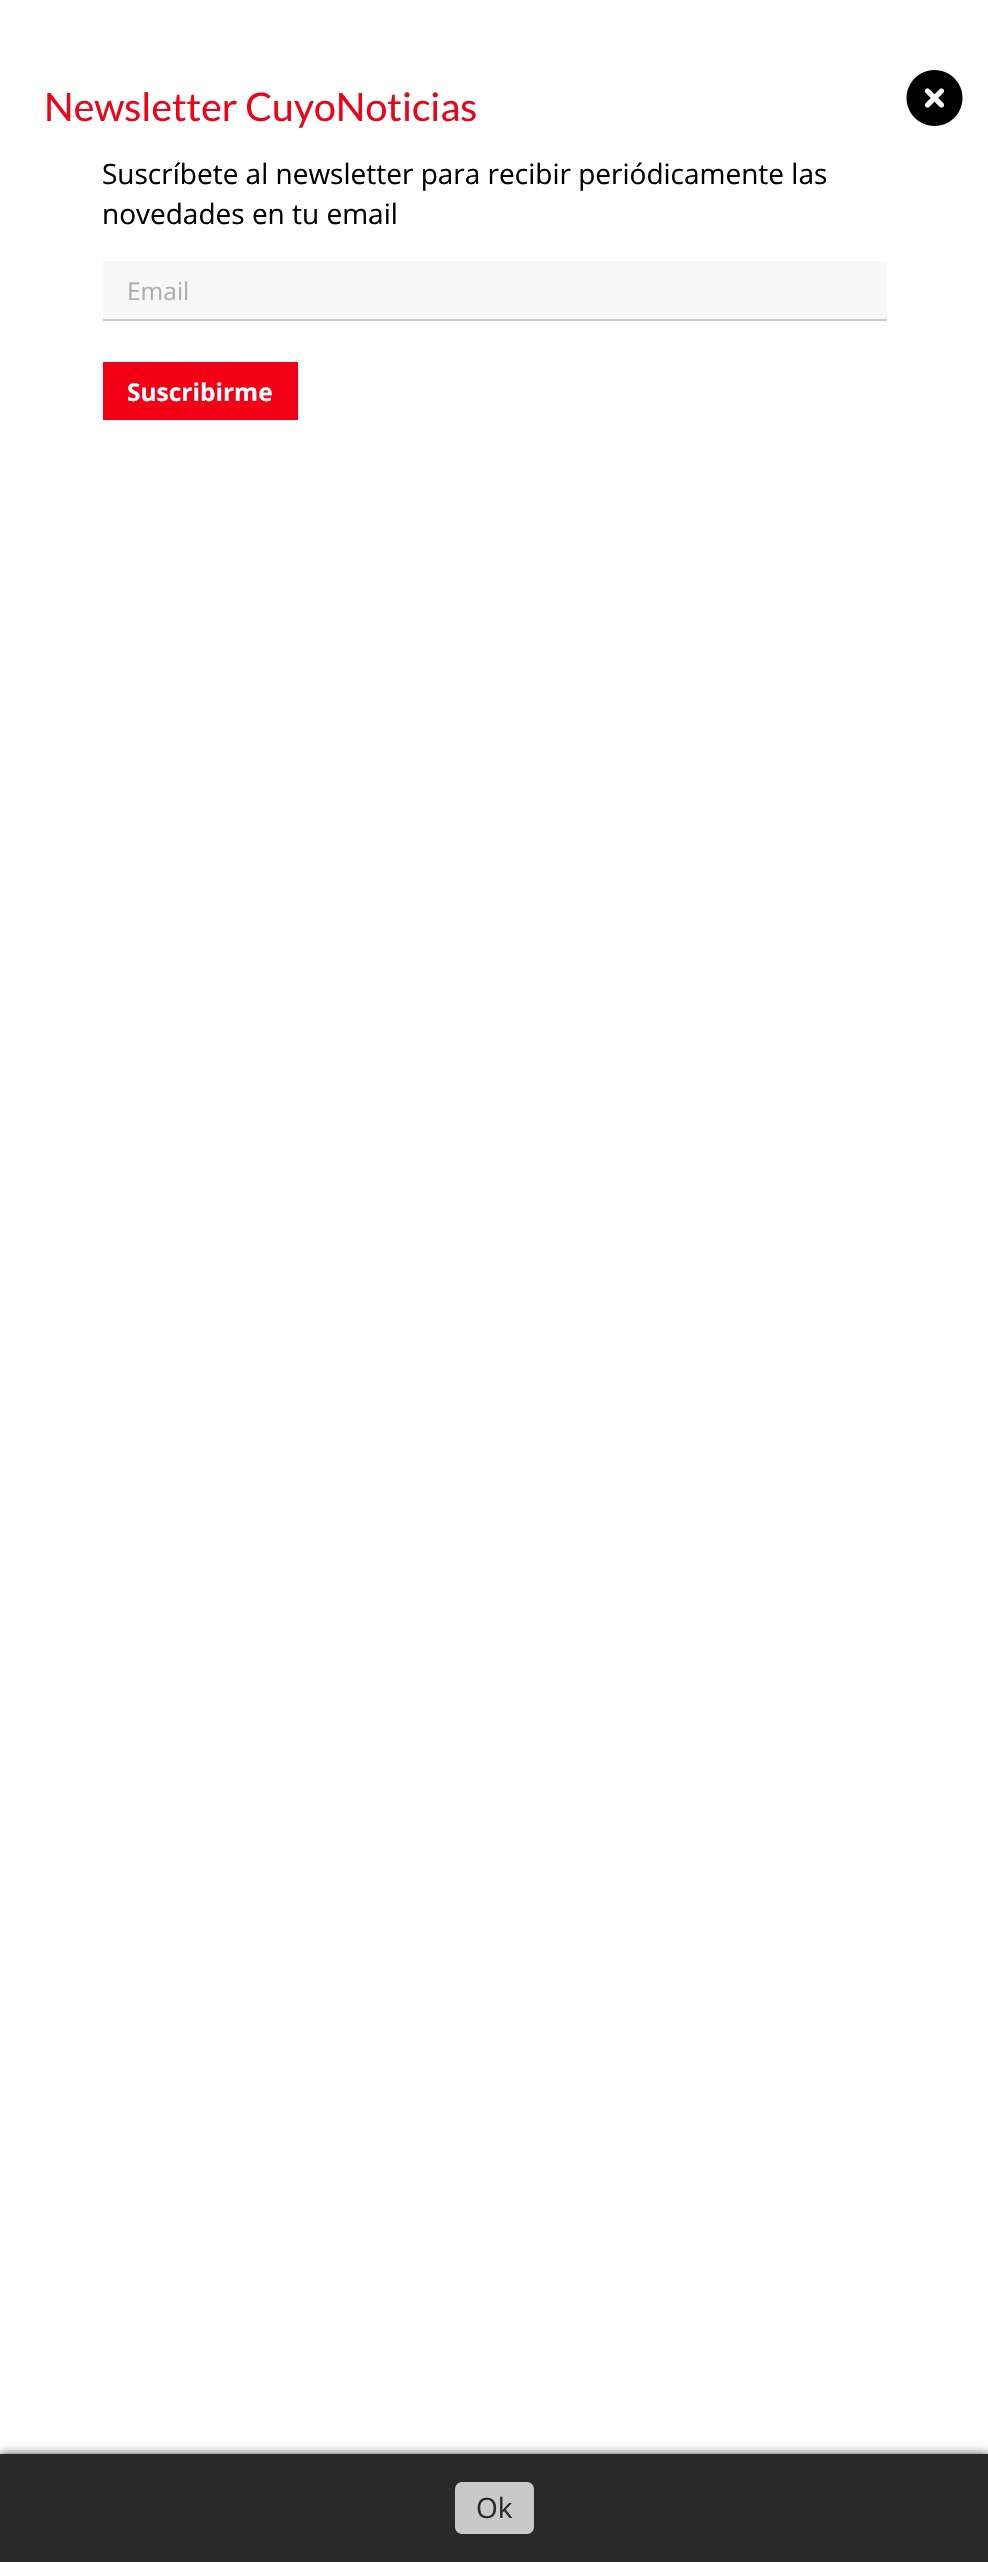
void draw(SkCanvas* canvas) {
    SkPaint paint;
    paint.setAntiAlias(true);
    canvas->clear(0xFFFFFFFF);
    SkFont font1(fontMgr->matchFamilyStyle("Lato", SkFontStyle::Normal()), 39.25f);
    font1.setSubpixel(true);
    paint.setColor(0xFFF30016);
    canvas->drawString("Newsletter CuyoNoticias", 44, 121, font1, paint);
    SkFont font2(fontMgr->matchFamilyStyle("Open Sans", SkFontStyle::Normal()), 28);
    font2.setSubpixel(true);
    paint.setColor(0xFF000000);
    canvas->drawString("Suscríbete al newsletter para recibir periódicamente las", 102, 184, font2, paint);
    canvas->drawString("novedades en tu email", 102, 224, font2, paint);
    paint.setColor(0xFFF7F7F7);
    canvas->drawRect(SkRect::MakeXYWH(103, 261, 784, 58), paint);
    paint.setColor(0xFFCCCCCC);
    canvas->drawRect(SkRect::MakeXYWH(103, 319, 784, 2), paint);
    SkFont font3(fontMgr->matchFamilyStyle("Open Sans", SkFontStyle::Normal()), 24.5f);
    font3.setSubpixel(true);
    paint.setColor(0xFFADADAD);
    canvas->drawString("Email", 127, 300, font3, paint);
    paint.setColor(0xFFF30016);
    canvas->drawRect(SkRect::MakeXYWH(103, 362, 195, 58), paint);
    SkFont font4(fontMgr->matchFamilyStyle("Open Sans", SkFontStyle::Bold()), 24.5f);
    font4.setSubpixel(true);
    paint.setColor(0xFFFFFFFF);
    canvas->drawString("Suscribirme", 127, 401, font4, paint);
    canvas->drawImageRect(SkImages::DeferredFromEncodedData(SkData::MakeFromFileName("img1.png")), SkRect::MakeXYWH(906, 70, 57, 56), SkSamplingOptions());
    paint.setColor(0xFF494949);
    paint.setMaskFilter(SkMaskFilter::MakeBlur(kNormal_SkBlurStyle, 4.5f));
    canvas->drawRect(SkRect::MakeXYWH(0, 2454, 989, 108), paint);
    paint.setMaskFilter(nullptr);
    paint.setColor(0xFF292929);
    canvas->drawRect(SkRect::MakeXYWH(0, 2454, 988, 108), paint);
    paint.setColor(0xFFC9C9C9);
    canvas->drawRoundRect(SkRect::MakeXYWH(455, 2482, 79, 52), 7, 7, paint);
    paint.setColor(0xFF292929);
    canvas->drawString("Ok", 476, 2518, font2, paint);
}
